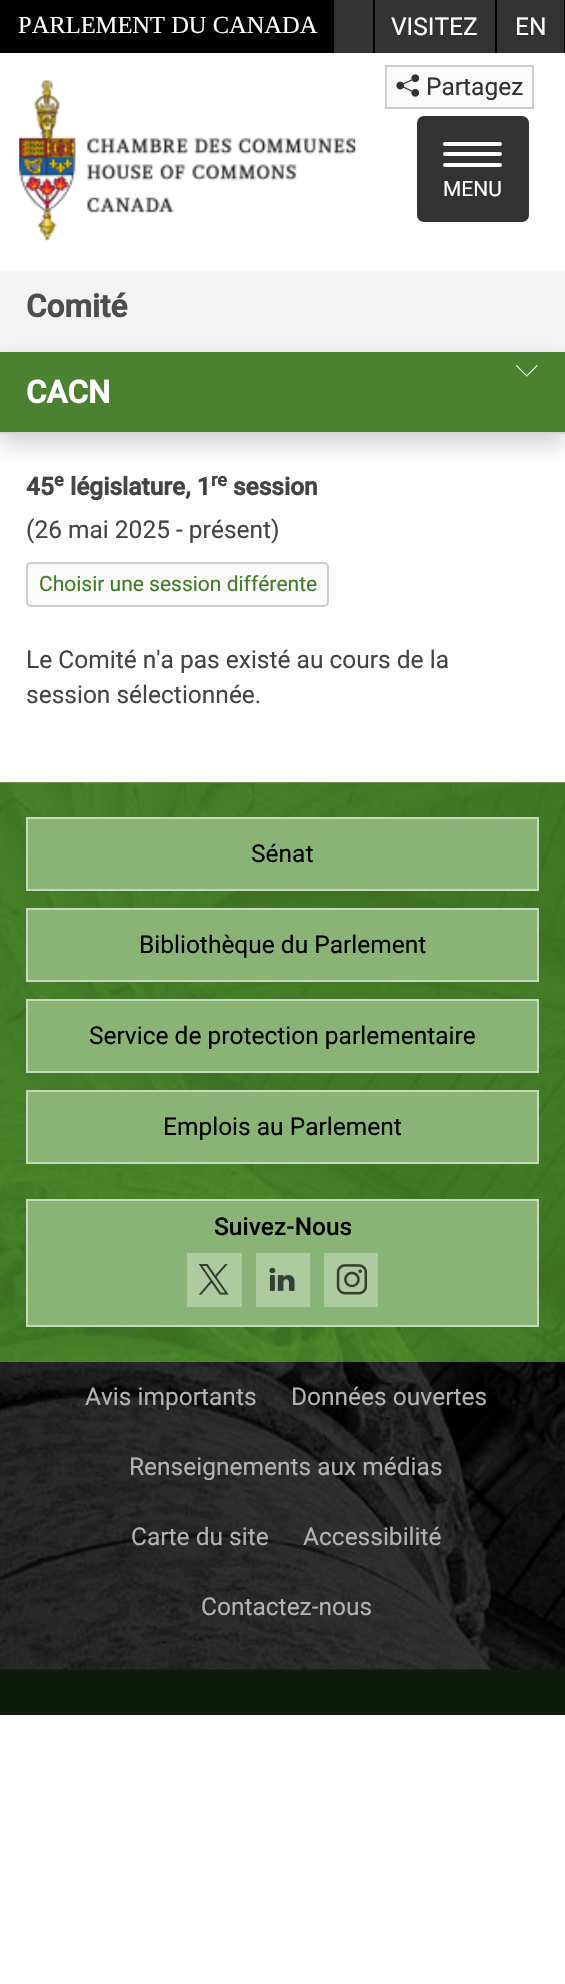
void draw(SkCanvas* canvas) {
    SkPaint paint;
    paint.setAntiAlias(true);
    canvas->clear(0xFFFFFFFF);
    paint.setColor(0xFF333333);
    canvas->drawRect(SkRect::MakeXYWH(334, 0, 230, 53), paint);
    paint.setColor(0xFF000000);
    canvas->drawRect(SkRect::MakeXYWH(0, 0, 334, 53), paint);
    SkFont font1(fontMgr->matchFamilyStyle("Liberation Serif", SkFontStyle::Normal()), 24.5f);
    font1.setSubpixel(true);
    paint.setColor(0xFFFFFFFF);
    canvas->drawString("PARLEMENT DU CANADA", 18, 33, font1, paint);
    paint.setColor(0xFF000000);
    canvas->drawRect(SkRect::MakeXYWH(373, 0, 2, 53), paint);
    SkFont font2(fontMgr->matchFamilyStyle("Roboto", SkFontStyle::Normal()), 24.5f);
    font2.setSubpixel(true);
    paint.setColor(0xFFFFFFFF);
    canvas->drawString("VISITEZ", 391, 35, font2, paint);
    paint.setColor(0xFF000000);
    canvas->drawRect(SkRect::MakeXYWH(564, 0, 1, 53), paint);
    canvas->drawRect(SkRect::MakeXYWH(495, 0, 2, 53), paint);
    paint.setColor(0xFFFFFFFF);
    canvas->drawString("EN", 515, 35, font2, paint);
    paint.setColor(0xFFFAFAFA);
    canvas->drawRect(SkRect::MakeXYWH(386, 66, 147, 42), paint);
    paint.setStyle(SkPaint::kStroke_Style);
    paint.setStrokeWidth(2);
    paint.setColor(0xFFCCCCCC);
    canvas->drawRect(SkRect::MakeXYWH(386, 66, 147, 42), paint);
    canvas->drawImageRect(SkImages::DeferredFromEncodedData(SkData::MakeFromFileName("img1.png")), SkRect::MakeXYWH(396, 74, 24, 23), SkSamplingOptions());
    paint.setStyle(SkPaint::kFill_Style);
    paint.setColor(0xFF333333);
    canvas->drawString("Partagez", 426, 95, font2, paint);
    canvas->drawImageRect(SkImages::DeferredFromEncodedData(SkData::MakeFromFileName("img2.png")), SkRect::MakeXYWH(19, 80, 337, 161), SkSamplingOptions());
    canvas->drawRoundRect(SkRect::MakeXYWH(417, 116, 112, 106), 7, 7, paint);
    paint.setColor(0xFFFFFFFF);
    canvas->drawRoundRect(SkRect::MakeXYWH(443, 142, 59, 4), 2, 2, paint);
    canvas->drawRoundRect(SkRect::MakeXYWH(443, 152, 59, 4), 2, 2, paint);
    canvas->drawRoundRect(SkRect::MakeXYWH(443, 163, 59, 4), 2, 2, paint);
    SkFont font3(fontMgr->matchFamilyStyle("Roboto", SkFontStyle::Normal()), 21);
    font3.setSubpixel(true);
    canvas->drawString("MENU", 443, 196, font3, paint);
    paint.setColor(0xFFF3F3F3);
    canvas->drawRect(SkRect::MakeXYWH(0, 271, 565, 81), paint);
    SkFont font4(fontMgr->matchFamilyStyle("Roboto", SkFontStyle::Bold()), 31.5f);
    font4.setSubpixel(true);
    paint.setColor(0xFF4D4D4D);
    canvas->drawString("Comité", 26, 317, font4, paint);
    paint.setColor(0x2E0D0D0D);
    paint.setMaskFilter(SkMaskFilter::MakeBlur(kNormal_SkBlurStyle, 10.5f));
    canvas->drawRect(SkRect::MakeXYWH(0, 361, 565, 84), paint);
    paint.setMaskFilter(nullptr);
    paint.setColor(0xFFD6D6D6);
    canvas->drawRect(SkRect::MakeXYWH(0, 432, 565, 2), paint);
    paint.setColor(0xFF4B8131);
    canvas->drawRect(SkRect::MakeXYWH(0, 352, 565, 80), paint);
    canvas->drawImageRect(SkImages::DeferredFromEncodedData(SkData::MakeFromFileName("img3.png")), SkRect::MakeXYWH(516, 365, 22, 12), SkSamplingOptions());
    paint.setColor(0xFFFFFFFF);
    canvas->drawString("CACN", 26, 403, font4, paint);
    SkFont font5(fontMgr->matchFamilyStyle("Roboto", SkFontStyle::Bold()), 24.5f);
    font5.setSubpixel(true);
    paint.setColor(0xFF444444);
    canvas->drawString("45", 26, 495, font5, paint);
    SkFont font6(fontMgr->matchFamilyStyle("Roboto", SkFontStyle::Bold()), 18);
    font6.setSubpixel(true);
    canvas->drawString("e", 54, 486, font6, paint);
    canvas->drawString("législature, 1", 70, 495, font5, paint);
    canvas->drawString("re", 211, 486, font6, paint);
    canvas->drawString("session", 233, 495, font5, paint);
    canvas->drawString("(26 mai 2025 - présent)", 26, 538, font2, paint);
    paint.setColor(0xFFFAFAFA);
    canvas->drawRoundRect(SkRect::MakeXYWH(27, 563, 301, 43), 4, 4, paint);
    paint.setStyle(SkPaint::kStroke_Style);
    paint.setColor(0xFFCCCCCC);
    canvas->drawRoundRect(SkRect::MakeXYWH(27, 563, 301, 43), 4, 4, paint);
    paint.setStyle(SkPaint::kFill_Style);
    paint.setColor(0xFF427A26);
    canvas->drawString("Choisir une session différente", 39, 591, font3, paint);
    paint.setColor(0xFF444444);
    canvas->drawString("Le Comité n'a pas existé au cours de la", 26, 668, font2, paint);
    canvas->drawString("session sélectionnée.", 26, 703, font2, paint);
    canvas->drawImageRect(SkImages::DeferredFromEncodedData(SkData::MakeFromFileName("img4.png")), SkRect::MakeXYWH(0, 782, 565, 580), SkSamplingOptions());
    paint.setColor(0xFF8AB476);
    canvas->drawRect(SkRect::MakeXYWH(27, 818, 511, 72), paint);
    paint.setStyle(SkPaint::kStroke_Style);
    paint.setColor(0xFFC5DABB);
    canvas->drawRect(SkRect::MakeXYWH(27, 818, 511, 72), paint);
    paint.setStyle(SkPaint::kFill_Style);
    paint.setColor(0xFF000000);
    canvas->drawString("Sénat", 251, 862, font2, paint);
    paint.setColor(0xFF8AB476);
    canvas->drawRect(SkRect::MakeXYWH(27, 909, 511, 72), paint);
    paint.setStyle(SkPaint::kStroke_Style);
    paint.setColor(0xFFC5DABB);
    canvas->drawRect(SkRect::MakeXYWH(27, 909, 511, 72), paint);
    paint.setStyle(SkPaint::kFill_Style);
    paint.setColor(0xFF000000);
    canvas->drawString("Bibliothèque du Parlement", 139, 953, font2, paint);
    paint.setColor(0xFF8AB476);
    canvas->drawRect(SkRect::MakeXYWH(27, 1000, 511, 72), paint);
    paint.setStyle(SkPaint::kStroke_Style);
    paint.setColor(0xFFC5DABB);
    canvas->drawRect(SkRect::MakeXYWH(27, 1000, 511, 72), paint);
    paint.setStyle(SkPaint::kFill_Style);
    paint.setColor(0xFF000000);
    canvas->drawString("Service de protection parlementaire", 89, 1044, font2, paint);
    paint.setColor(0xFF8AB476);
    canvas->drawRect(SkRect::MakeXYWH(27, 1091, 511, 72), paint);
    paint.setStyle(SkPaint::kStroke_Style);
    paint.setColor(0xFFC5DABB);
    canvas->drawRect(SkRect::MakeXYWH(27, 1091, 511, 72), paint);
    paint.setStyle(SkPaint::kFill_Style);
    paint.setColor(0xFF000000);
    canvas->drawString("Emplois au Parlement", 163, 1135, font2, paint);
    paint.setColor(0xFF8AB476);
    canvas->drawRect(SkRect::MakeXYWH(27, 1200, 511, 126), paint);
    paint.setStyle(SkPaint::kStroke_Style);
    paint.setColor(0xFFC5DABB);
    canvas->drawRect(SkRect::MakeXYWH(27, 1200, 511, 126), paint);
    SkFont font7(fontMgr->matchFamilyStyle("Roboto", SkFontStyle(500, SkFontStyle::kNormal_Width, SkFontStyle::kUpright_Slant)), 24.5f);
    font7.setSubpixel(true);
    paint.setStyle(SkPaint::kFill_Style);
    paint.setColor(0xFF000000);
    canvas->drawString("Suivez-Nous", 214, 1235, font7, paint);
    paint.setColor(0xFFADCB9F);
    canvas->drawRect(SkRect::MakeXYWH(187, 1253, 55, 54), paint);
    canvas->drawImageRect(SkImages::DeferredFromEncodedData(SkData::MakeFromFileName("img5.png")), SkRect::MakeXYWH(198, 1264, 31, 31), SkSamplingOptions());
    canvas->drawRect(SkRect::MakeXYWH(256, 1253, 54, 54), paint);
    canvas->drawImageRect(SkImages::DeferredFromEncodedData(SkData::MakeFromFileName("img6.png")), SkRect::MakeXYWH(269, 1267, 26, 24), SkSamplingOptions());
    canvas->drawRect(SkRect::MakeXYWH(324, 1253, 54, 54), paint);
    canvas->drawImageRect(SkImages::DeferredFromEncodedData(SkData::MakeFromFileName("img7.png")), SkRect::MakeXYWH(336, 1264, 32, 31), SkSamplingOptions());
    paint.setColor(0xFF0F1C09);
    canvas->drawRect(SkRect::MakeXYWH(0, 1669, 565, 46), paint);
    canvas->drawImageRect(SkImages::DeferredFromEncodedData(SkData::MakeFromFileName("img8.png")), SkRect::MakeXYWH(0, 1361, 565, 309), SkSamplingOptions());
    paint.setColor(0xFFB3B3B3);
    canvas->drawString("Avis importants", 85, 1405, font2, paint);
    canvas->drawString("Données ouvertes", 291, 1405, font2, paint);
    canvas->drawString("Renseignements aux médias", 129, 1475, font2, paint);
    canvas->drawString("Carte du site", 131, 1545, font2, paint);
    canvas->drawString("Accessibilité", 303, 1545, font2, paint);
    canvas->drawString("Contactez-nous", 201, 1615, font2, paint);
}
